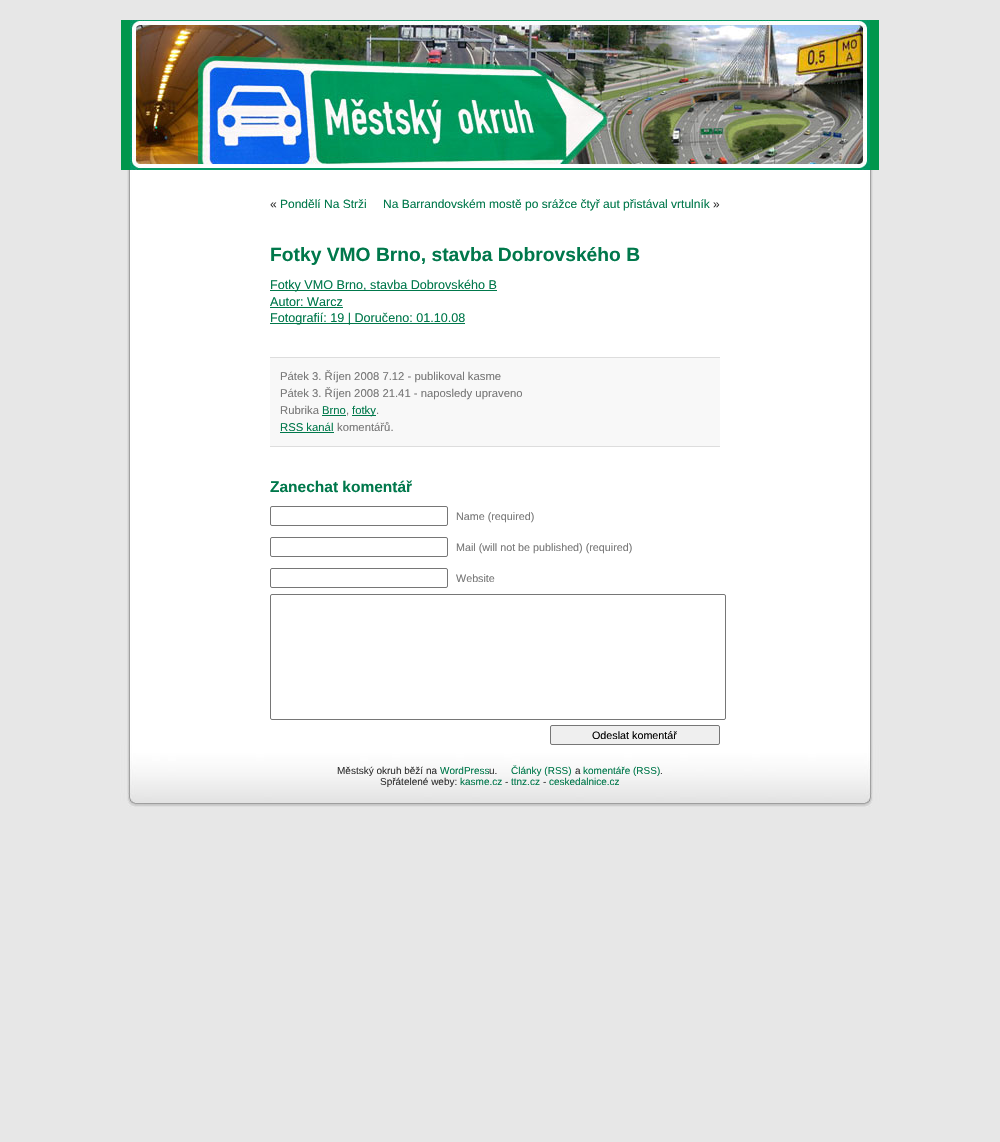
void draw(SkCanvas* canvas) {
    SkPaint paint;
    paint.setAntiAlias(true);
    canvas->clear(0xFFE7E7E7);
    canvas->drawImageRect(SkImages::DeferredFromEncodedData(SkData::MakeFromFileName("img1.png")), SkRect::MakeXYWH(127, 170, 746, 575), SkSamplingOptions());
    paint.setColor(0xFF00964B);
    canvas->drawRect(SkRect::MakeXYWH(121, 20, 758, 150), paint);
    canvas->drawImageRect(SkImages::DeferredFromEncodedData(SkData::MakeFromFileName("img2.png")), SkRect::MakeXYWH(130, 20, 740, 150), SkSamplingOptions());
    SkFont font1(fontMgr->matchFamilyStyle("Liberation Sans", SkFontStyle::Normal()), 12);
    font1.setSubpixel(true);
    paint.setColor(0xFF333333);
    canvas->drawString("«", 270, 208, font1, paint);
    paint.setColor(0xFF00784B);
    canvas->drawString("Pondělí Na Strži", 280, 208, font1, paint);
    canvas->drawString("Na Barrandovském mostě po srážce čtyř aut přistával vrtulník", 383, 208, font1, paint);
    paint.setColor(0xFF333333);
    canvas->drawString("»", 713, 208, font1, paint);
    SkFont font2(fontMgr->matchFamilyStyle("Liberation Sans", SkFontStyle::Bold()), 19.25f);
    font2.setSubpixel(true);
    paint.setColor(0xFF00784B);
    canvas->drawString("Fotky VMO Brno, stavba Dobrovského B", 270, 261, font2, paint);
    canvas->drawRect(SkRect::MakeXYWH(270, 290, 227, 1), paint);
    SkFont font3(fontMgr->matchFamilyStyle("Liberation Sans", SkFontStyle::Normal()), 12.6f);
    font3.setSubpixel(true);
    canvas->drawString("Fotky VMO Brno, stavba Dobrovského B", 270, 289, font3, paint);
    canvas->drawString("Autor: Warcz", 270, 306, font3, paint);
    canvas->drawRect(SkRect::MakeXYWH(270, 307, 73, 1), paint);
    canvas->drawRect(SkRect::MakeXYWH(270, 323, 195, 1), paint);
    canvas->drawString("Fotografií: 19 | Doručeno: 01.10.08", 270, 322, font3, paint);
    paint.setColor(0xFFF8F8F8);
    canvas->drawRect(SkRect::MakeXYWH(270, 358, 450, 88), paint);
    paint.setColor(0xFFDDDDDD);
    canvas->drawRect(SkRect::MakeXYWH(270, 357, 450, 1), paint);
    canvas->drawRect(SkRect::MakeXYWH(270, 446, 450, 1), paint);
    SkFont font4(fontMgr->matchFamilyStyle("Liberation Sans", SkFontStyle::Normal()), 11.3f);
    font4.setSubpixel(true);
    paint.setColor(0xFF777777);
    canvas->drawString("Pátek 3. Říjen 2008 7.12 - publikoval kasme", 280, 380, font4, paint);
    canvas->drawString("Pátek 3. Říjen 2008 21.41 - naposledy upraveno", 280, 397, font4, paint);
    canvas->drawString("Rubrika", 280, 414, font4, paint);
    paint.setColor(0xFF00784B);
    canvas->drawString("Brno", 322, 414, font4, paint);
    paint.setColor(0xFF777777);
    canvas->drawString(",", 346, 414, font4, paint);
    paint.setColor(0xFF00784B);
    canvas->drawRect(SkRect::MakeXYWH(322, 415, 24, 1), paint);
    canvas->drawRect(SkRect::MakeXYWH(352, 415, 24, 1), paint);
    canvas->drawString("fotky", 352, 414, font4, paint);
    paint.setColor(0xFF777777);
    canvas->drawString(".", 376, 414, font4, paint);
    paint.setColor(0xFF00784B);
    canvas->drawString("RSS kanál", 280, 431, font4, paint);
    canvas->drawRect(SkRect::MakeXYWH(280, 432, 54, 1), paint);
    paint.setColor(0xFF777777);
    canvas->drawString("komentářů.", 337, 431, font4, paint);
    SkFont font5(fontMgr->matchFamilyStyle("Liberation Sans", SkFontStyle::Bold()), 15.5f);
    font5.setSubpixel(true);
    paint.setColor(0xFF00784B);
    canvas->drawString("Zanechat komentář", 270, 492, font5, paint);
    paint.setStyle(SkPaint::kStroke_Style);
    paint.setStrokeWidth(1);
    paint.setColor(0xFF767676);
    canvas->drawRoundRect(SkRect::MakeXYWH(270.5f, 506.5f, 177, 19), 1.5f, 1.5f, paint);
    SkFont font6(fontMgr->matchFamilyStyle("Liberation Sans", SkFontStyle::Normal()), 10.75f);
    font6.setSubpixel(true);
    paint.setStyle(SkPaint::kFill_Style);
    paint.setColor(0xFF777777);
    canvas->drawString("Name (required)", 456, 520, font6, paint);
    paint.setStyle(SkPaint::kStroke_Style);
    paint.setColor(0xFF767676);
    canvas->drawRoundRect(SkRect::MakeXYWH(270.5f, 537.5f, 177, 19), 1.5f, 1.5f, paint);
    paint.setStyle(SkPaint::kFill_Style);
    paint.setColor(0xFF777777);
    canvas->drawString("Mail (will not be published) (required)", 456, 551, font6, paint);
    paint.setStyle(SkPaint::kStroke_Style);
    paint.setColor(0xFF767676);
    canvas->drawRoundRect(SkRect::MakeXYWH(270.5f, 568.5f, 177, 19), 1.5f, 1.5f, paint);
    paint.setStyle(SkPaint::kFill_Style);
    paint.setColor(0xFF777777);
    canvas->drawString("Website", 456, 582, font6, paint);
    paint.setStyle(SkPaint::kStroke_Style);
    paint.setColor(0xFF767676);
    canvas->drawRoundRect(SkRect::MakeXYWH(270.5f, 594.5f, 455, 125), 1.5f, 1.5f, paint);
    paint.setStyle(SkPaint::kFill_Style);
    paint.setColor(0xFFEFEFEF);
    canvas->drawRoundRect(SkRect::MakeXYWH(550.5f, 725.5f, 169, 19), 1.5f, 1.5f, paint);
    paint.setStyle(SkPaint::kStroke_Style);
    paint.setColor(0xFF767676);
    canvas->drawRoundRect(SkRect::MakeXYWH(550.5f, 725.5f, 169, 19), 1.5f, 1.5f, paint);
    paint.setStyle(SkPaint::kFill_Style);
    paint.setColor(0xFF000000);
    canvas->drawString("Odeslat komentář", 592, 739, font6, paint);
    canvas->drawImageRect(SkImages::DeferredFromEncodedData(SkData::MakeFromFileName("img3.png")), SkRect::MakeXYWH(120, 745, 760, 62), SkSamplingOptions());
    SkFont font7(fontMgr->matchFamilyStyle("Liberation Sans", SkFontStyle::Normal()), 10);
    font7.setSubpixel(true);
    paint.setColor(0xFF333333);
    canvas->drawString("Městský okruh běží na", 337, 774, font7, paint);
    paint.setColor(0xFF00784B);
    canvas->drawString("WordPress", 440, 774, font7, paint);
    paint.setColor(0xFF333333);
    canvas->drawString("u.", 489, 774, font7, paint);
    paint.setColor(0xFF00784B);
    canvas->drawString("Články (RSS)", 511, 774, font7, paint);
    paint.setColor(0xFF333333);
    canvas->drawString("a", 575, 774, font7, paint);
    paint.setColor(0xFF00784B);
    canvas->drawString("komentáře (RSS)", 583, 774, font7, paint);
    paint.setColor(0xFF333333);
    canvas->drawString(".", 660, 774, font7, paint);
    canvas->drawString("Spřátelené weby:", 380, 785, font7, paint);
    paint.setColor(0xFF00784B);
    canvas->drawString("kasme.cz", 460, 785, font7, paint);
    paint.setColor(0xFF333333);
    canvas->drawString("-", 505, 785, font7, paint);
    paint.setColor(0xFF00784B);
    canvas->drawString("ttnz.cz", 511, 785, font7, paint);
    paint.setColor(0xFF333333);
    canvas->drawString("-", 543, 785, font7, paint);
    paint.setColor(0xFF00784B);
    canvas->drawString("ceskedalnice.cz", 549, 785, font7, paint);
}
